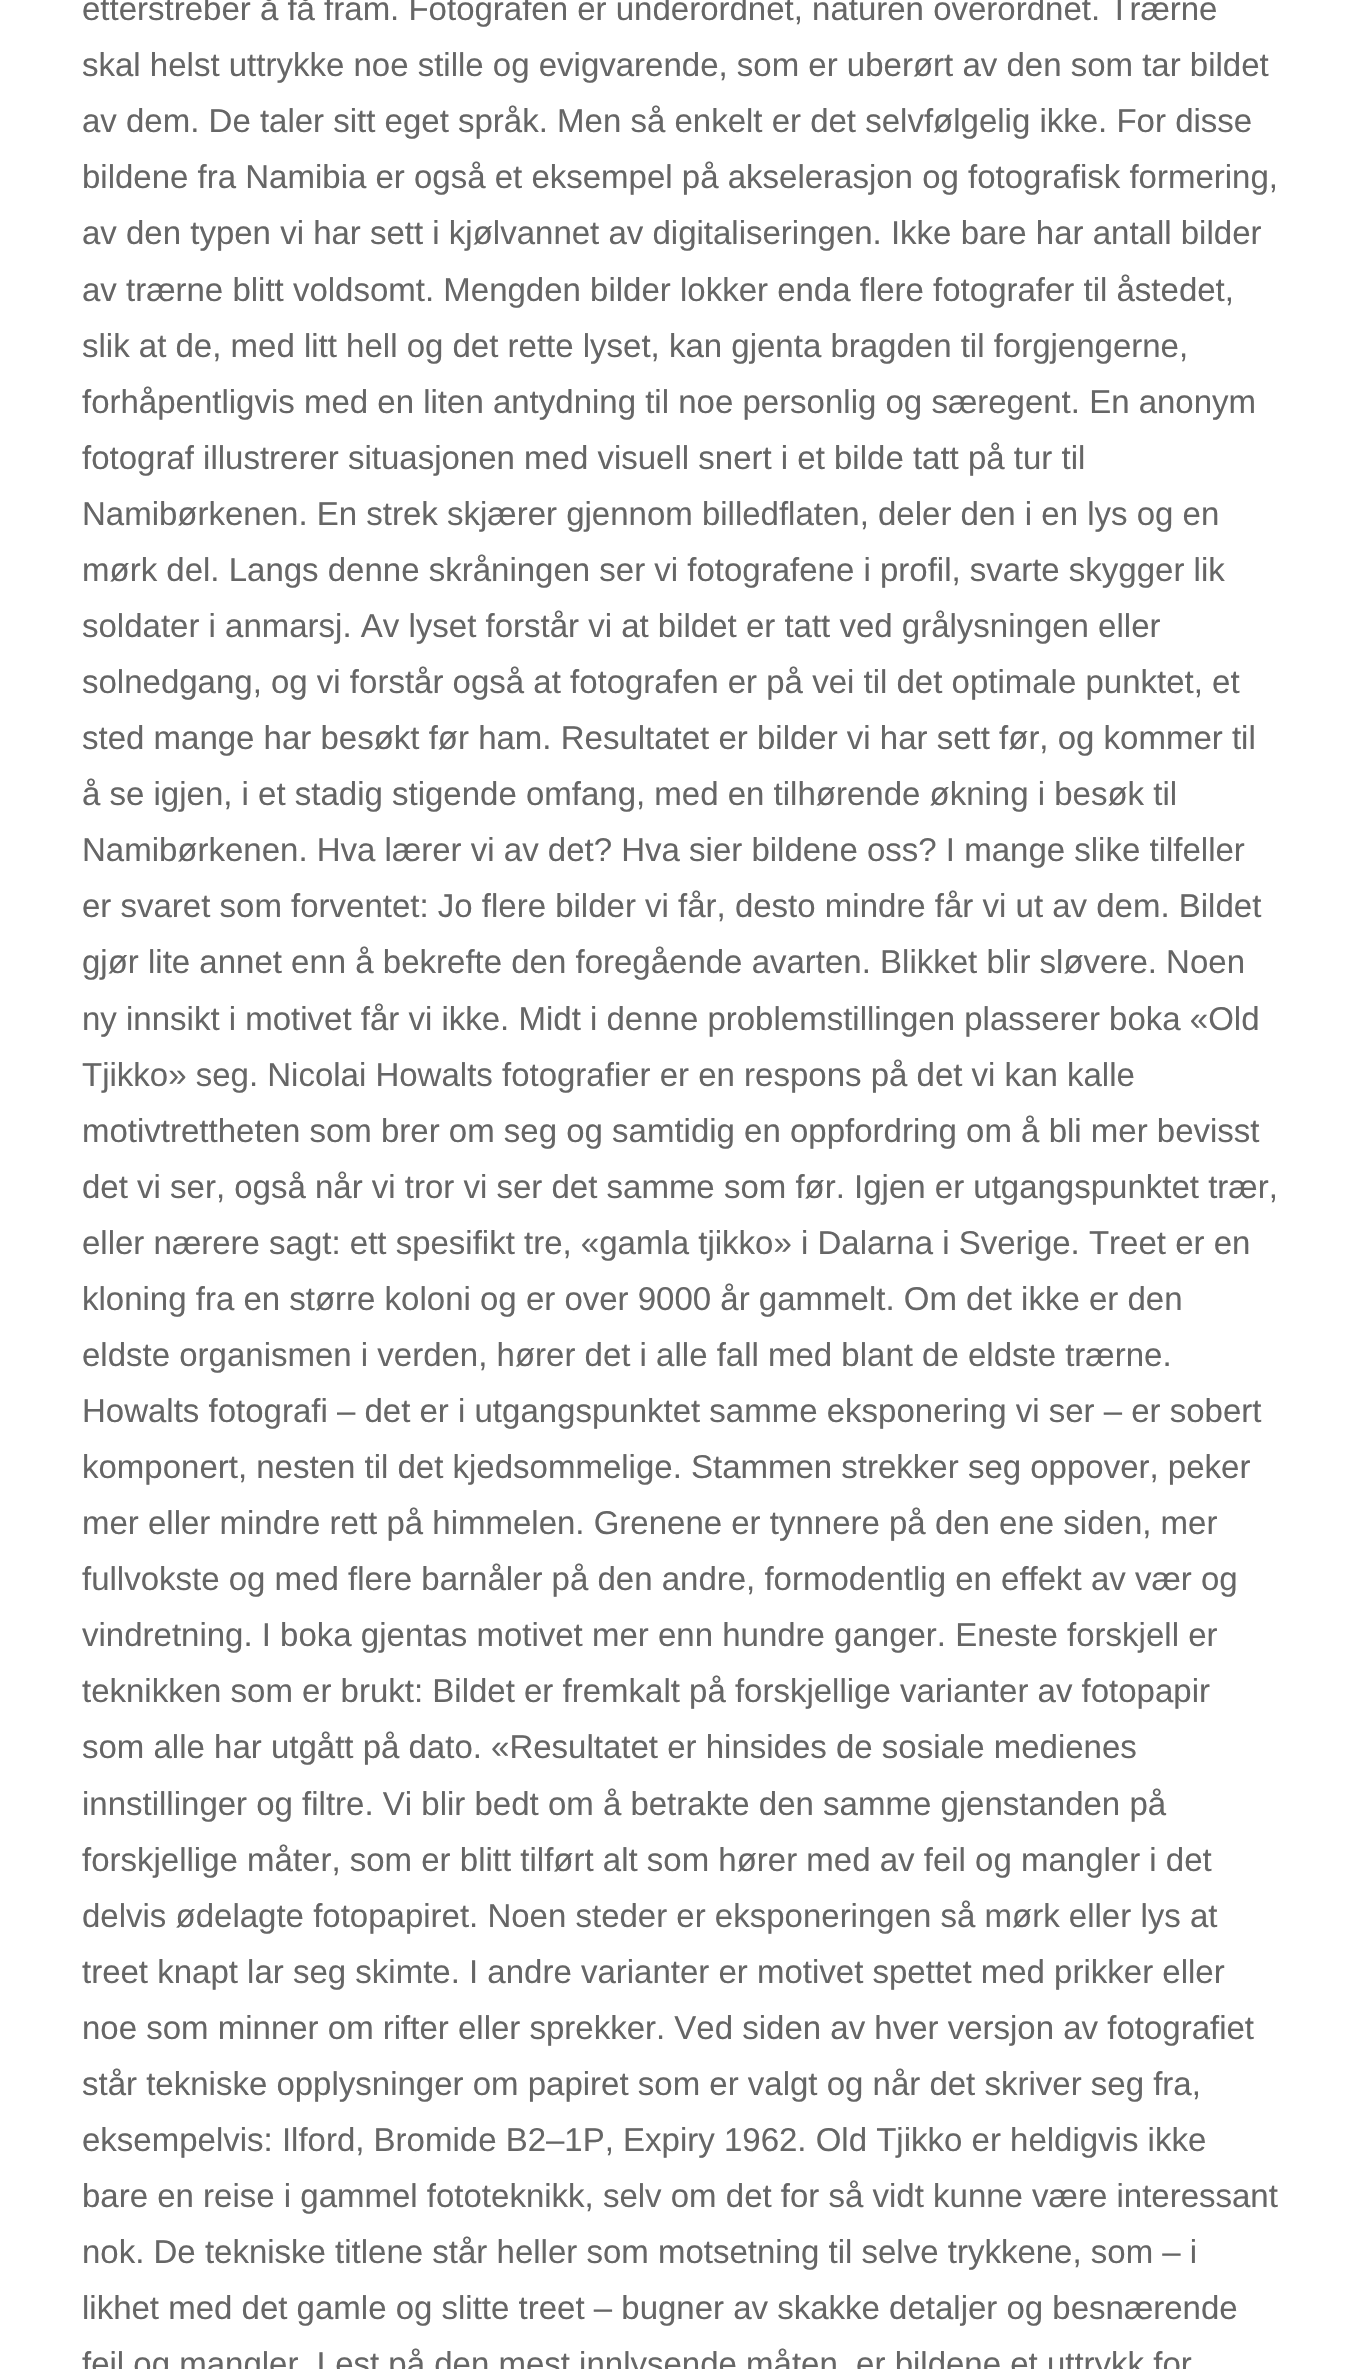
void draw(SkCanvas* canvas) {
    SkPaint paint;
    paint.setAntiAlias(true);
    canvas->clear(0xFFFFFFFF);
    SkFont font1(fontMgr->matchFamilyStyle("Liberation Sans", SkFontStyle::Normal()), 33);
    font1.setSubpixel(true);
    paint.setColor(0xFF666666);
    canvas->drawString("etterstreber å få fram. Fotografen er underordnet, naturen overordnet. Trærne", 82, 20, font1, paint);
    canvas->drawString("skal helst uttrykke noe stille og evigvarende, som er uberørt av den som tar bildet", 82, 76, font1, paint);
    canvas->drawString("av dem. De taler sitt eget språk. Men så enkelt er det selvfølgelig ikke. For disse", 82, 132, font1, paint);
    canvas->drawString("bildene fra Namibia er også et eksempel på akselerasjon og fotografisk formering,", 82, 188, font1, paint);
    canvas->drawString("av den typen vi har sett i kjølvannet av digitaliseringen. Ikke bare har antall bilder", 82, 244, font1, paint);
    canvas->drawString("av trærne blitt voldsomt. Mengden bilder lokker enda flere fotografer til åstedet,", 82, 301, font1, paint);
    canvas->drawString("slik at de, med litt hell og det rette lyset, kan gjenta bragden til forgjengerne,", 82, 357, font1, paint);
    canvas->drawString("forhåpentligvis med en liten antydning til noe personlig og særegent. En anonym", 82, 413, font1, paint);
    canvas->drawString("fotograf illustrerer situasjonen med visuell snert i et bilde tatt på tur til", 82, 469, font1, paint);
    canvas->drawString("Namibørkenen. En strek skjærer gjennom billedflaten, deler den i en lys og en", 82, 525, font1, paint);
    canvas->drawString("mørk del. Langs denne skråningen ser vi fotografene i profil, svarte skygger lik", 82, 581, font1, paint);
    canvas->drawString("soldater i anmarsj. Av lyset forstår vi at bildet er tatt ved grålysningen eller", 82, 637, font1, paint);
    canvas->drawString("solnedgang, og vi forstår også at fotografen er på vei til det optimale punktet, et", 82, 693, font1, paint);
    canvas->drawString("sted mange har besøkt før ham. Resultatet er bilder vi har sett før, og kommer til", 82, 749, font1, paint);
    canvas->drawString("å se igjen, i et stadig stigende omfang, med en tilhørende økning i besøk til", 82, 805, font1, paint);
    canvas->drawString("Namibørkenen. Hva lærer vi av det? Hva sier bildene oss? I mange slike tilfeller", 82, 861, font1, paint);
    canvas->drawString("er svaret som forventet: Jo flere bilder vi får, desto mindre får vi ut av dem. Bildet", 82, 917, font1, paint);
    canvas->drawString("gjør lite annet enn å bekrefte den foregående avarten. Blikket blir sløvere. Noen", 82, 973, font1, paint);
    canvas->drawString("ny innsikt i motivet får vi ikke. Midt i denne problemstillingen plasserer boka «Old", 82, 1030, font1, paint);
    canvas->drawString("Tjikko» seg. Nicolai Howalts fotografier er en respons på det vi kan kalle", 82, 1086, font1, paint);
    canvas->drawString("motivtrettheten som brer om seg og samtidig en oppfordring om å bli mer bevisst", 82, 1142, font1, paint);
    canvas->drawString("det vi ser, også når vi tror vi ser det samme som før. Igjen er utgangspunktet trær,", 82, 1198, font1, paint);
    canvas->drawString("eller nærere sagt: ett spesifikt tre, «gamla tjikko» i Dalarna i Sverige. Treet er en", 82, 1254, font1, paint);
    canvas->drawString("kloning fra en større koloni og er over 9000 år gammelt. Om det ikke er den", 82, 1310, font1, paint);
    canvas->drawString("eldste organismen i verden, hører det i alle fall med blant de eldste trærne.", 82, 1366, font1, paint);
    canvas->drawString("Howalts fotografi – det er i utgangspunktet samme eksponering vi ser – er sobert", 82, 1422, font1, paint);
    canvas->drawString("komponert, nesten til det kjedsommelige. Stammen strekker seg oppover, peker", 82, 1478, font1, paint);
    canvas->drawString("mer eller mindre rett på himmelen. Grenene er tynnere på den ene siden, mer", 82, 1534, font1, paint);
    canvas->drawString("fullvokste og med flere barnåler på den andre, formodentlig en effekt av vær og", 82, 1590, font1, paint);
    canvas->drawString("vindretning. I boka gjentas motivet mer enn hundre ganger. Eneste forskjell er", 82, 1646, font1, paint);
    canvas->drawString("teknikken som er brukt: Bildet er fremkalt på forskjellige varianter av fotopapir", 82, 1702, font1, paint);
    canvas->drawString("som alle har utgått på dato. «Resultatet er hinsides de sosiale medienes", 82, 1758, font1, paint);
    canvas->drawString("innstillinger og filtre. Vi blir bedt om å betrakte den samme gjenstanden på", 82, 1815, font1, paint);
    canvas->drawString("forskjellige måter, som er blitt tilført alt som hører med av feil og mangler i det", 82, 1871, font1, paint);
    canvas->drawString("delvis ødelagte fotopapiret. Noen steder er eksponeringen så mørk eller lys at", 82, 1927, font1, paint);
    canvas->drawString("treet knapt lar seg skimte. I andre varianter er motivet spettet med prikker eller", 82, 1983, font1, paint);
    canvas->drawString("noe som minner om rifter eller sprekker. Ved siden av hver versjon av fotografiet", 82, 2039, font1, paint);
    canvas->drawString("står tekniske opplysninger om papiret som er valgt og når det skriver seg fra,", 82, 2095, font1, paint);
    canvas->drawString("eksempelvis: Ilford, Bromide B2–1P, Expiry 1962. Old Tjikko er heldigvis ikke", 82, 2151, font1, paint);
    canvas->drawString("bare en reise i gammel fototeknikk, selv om det for så vidt kunne være interessant", 82, 2207, font1, paint);
    canvas->drawString("nok. De tekniske titlene står heller som motsetning til selve trykkene, som – i", 82, 2263, font1, paint);
    canvas->drawString("likhet med det gamle og slitte treet – bugner av skakke detaljer og besnærende", 82, 2319, font1, paint);
    canvas->drawString("feil og mangler. Lest på den mest innlysende måten, er bildene et uttrykk for", 82, 2375, font1, paint);
}
